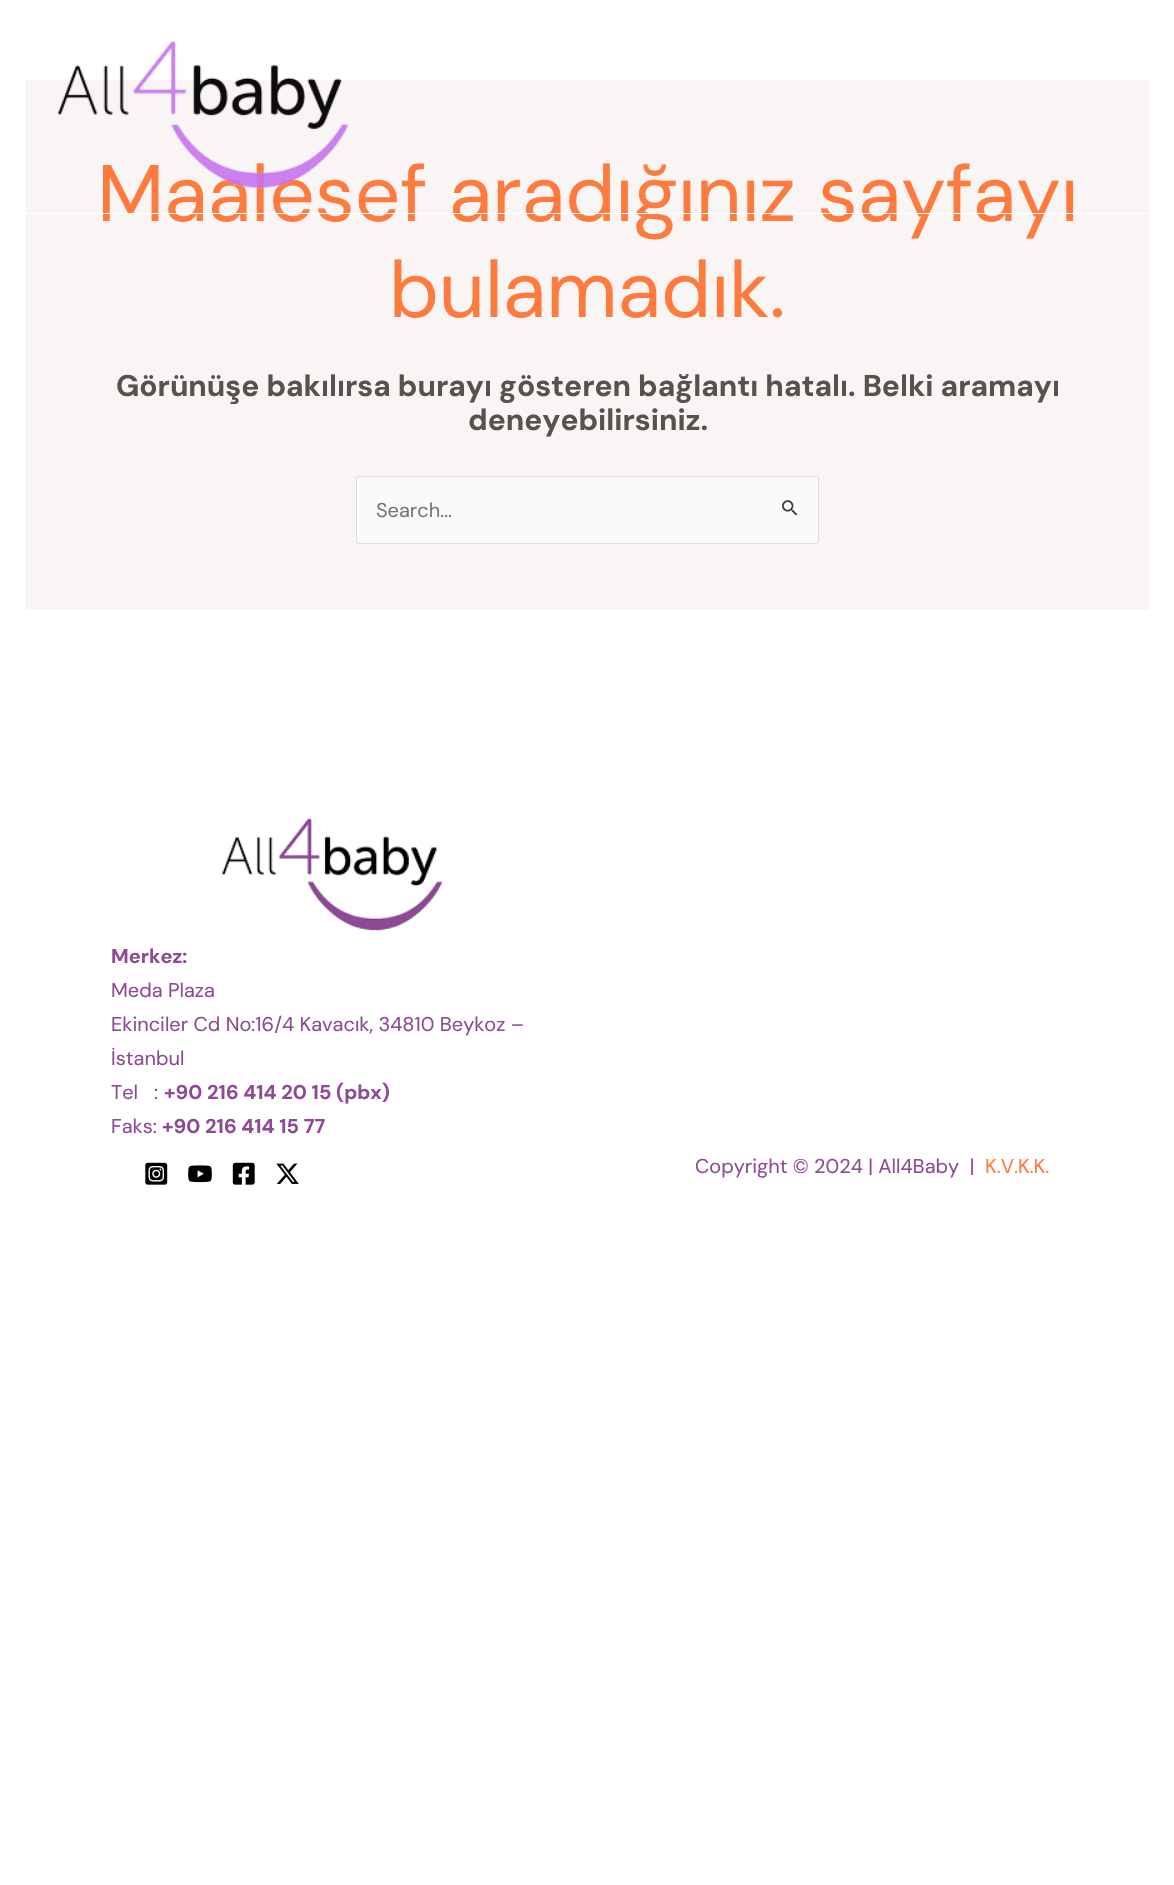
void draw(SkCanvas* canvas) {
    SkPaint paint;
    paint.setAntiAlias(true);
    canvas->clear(0xFFFFFFFF);
    paint.setColor(0xFFF8F5F4);
    canvas->drawRect(SkRect::MakeXYWH(25, 80, 1125, 530), paint);
    SkFont font1(fontMgr->matchFamilyStyle("DM Sans", SkFontStyle::Normal()), 80);
    font1.setSubpixel(true);
    paint.setColor(0xFFFF7A3D);
    canvas->drawString("Maalesef aradığınız sayfayı", 97, 221, font1, paint);
    paint.setColor(0xFFFFFFFF);
    canvas->drawRect(SkRect::MakeXYWH(25, 213, 1125, 1), paint);
    canvas->drawImageRect(SkImages::DeferredFromEncodedData(SkData::MakeFromFileName("img1.png")), SkRect::MakeXYWH(57, 41, 292, 148), SkSamplingOptions());
    paint.setColor(0xFFFF7A3D);
    canvas->drawString("bulamadık.", 389, 317, font1, paint);
    SkFont font2(fontMgr->matchFamilyStyle("DM Sans", SkFontStyle::Bold()), 30);
    font2.setSubpixel(true);
    paint.setColor(0xFF575250);
    canvas->drawString("Görünüşe bakılırsa burayı gösteren bağlantı hatalı. Belki aramayı", 116, 396, font2, paint);
    canvas->drawString("deneyebilirsiniz.", 468, 430, font2, paint);
    paint.setColor(0xFFFAFAFA);
    canvas->drawRoundRect(SkRect::MakeXYWH(356.5f, 476.5f, 462, 67), 2, 2, paint);
    paint.setStyle(SkPaint::kStroke_Style);
    paint.setStrokeWidth(1);
    paint.setColor(0xFFDDDDDD);
    canvas->drawRoundRect(SkRect::MakeXYWH(356.5f, 476.5f, 462, 67), 2, 2, paint);
    SkFont font3(fontMgr->matchFamilyStyle("DM Sans", SkFontStyle::Normal()), 20);
    font3.setSubpixel(true);
    paint.setStyle(SkPaint::kFill_Style);
    paint.setColor(0xFF757575);
    canvas->drawString("Search...", 376, 517, font3, paint);
    canvas->drawImageRect(SkImages::DeferredFromEncodedData(SkData::MakeFromFileName("img2.png")), SkRect::MakeXYWH(782, 500, 16, 16), SkSamplingOptions());
    canvas->drawImageRect(SkImages::DeferredFromEncodedData(SkData::MakeFromFileName("img3.png")), SkRect::MakeXYWH(222, 818, 221, 113), SkSamplingOptions());
    SkFont font4(fontMgr->matchFamilyStyle("DM Sans", SkFontStyle::Bold()), 20);
    font4.setSubpixel(true);
    paint.setColor(0xFF8E4A95);
    canvas->drawString("Merkez:", 111, 963, font4, paint);
    canvas->drawString("Meda Plaza", 111, 997, font3, paint);
    canvas->drawString("Ekinciler Cd No:16/4 Kavacık, 34810 Beykoz –", 111, 1031, font3, paint);
    canvas->drawString("İstanbul", 111, 1065, font3, paint);
    canvas->drawString("Tel   :", 111, 1099, font3, paint);
    canvas->drawString("+90 216 414 20 15 (pbx)", 164, 1099, font4, paint);
    canvas->drawString("Faks:", 111, 1133, font3, paint);
    canvas->drawString("+90 216 414 15 77", 162, 1133, font4, paint);
    canvas->drawImageRect(SkImages::DeferredFromEncodedData(SkData::MakeFromFileName("img4.png")), SkRect::MakeXYWH(145, 1162, 23, 23), SkSamplingOptions());
    canvas->drawImageRect(SkImages::DeferredFromEncodedData(SkData::MakeFromFileName("img5.png")), SkRect::MakeXYWH(188, 1165, 24, 18), SkSamplingOptions());
    canvas->drawImageRect(SkImages::DeferredFromEncodedData(SkData::MakeFromFileName("img6.png")), SkRect::MakeXYWH(232, 1162, 23, 23), SkSamplingOptions());
    canvas->drawImageRect(SkImages::DeferredFromEncodedData(SkData::MakeFromFileName("img7.png")), SkRect::MakeXYWH(276, 1163, 23, 21), SkSamplingOptions());
    canvas->drawString("Copyright © 2024 | All4Baby  |", 695, 1173, font3, paint);
    paint.setColor(0xFFFF7A3D);
    canvas->drawString("K.V.K.K.", 985, 1173, font3, paint);
}
